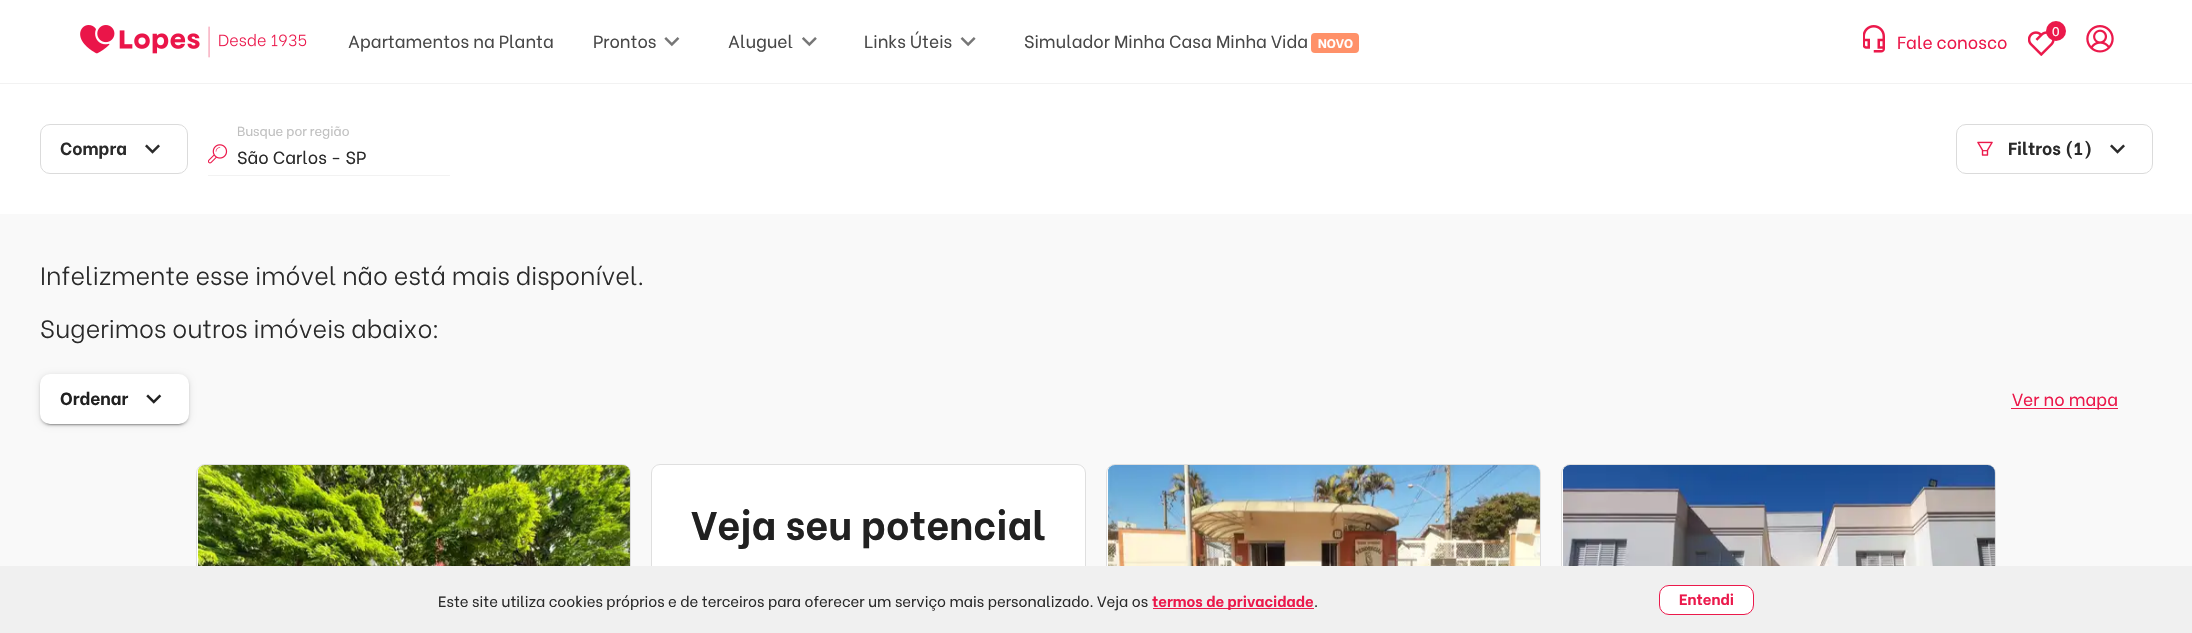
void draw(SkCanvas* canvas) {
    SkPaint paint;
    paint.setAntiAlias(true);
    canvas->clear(0xFFFFFFFF);
    paint.setColor(0xFFF2F2F2);
    canvas->drawRect(SkRect::MakeXYWH(0, 83, 2192, 1), paint);
    canvas->drawImageRect(SkImages::DeferredFromEncodedData(SkData::MakeFromFileName("img1.png")), SkRect::MakeXYWH(80, 25, 227, 33), SkSamplingOptions());
    SkFont font1(fontMgr->matchFamilyStyle("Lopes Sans", SkFontStyle::Normal()), 17.5f);
    font1.setSubpixel(true);
    paint.setColor(0xFF484848);
    canvas->drawString("Apartamentos na Planta", 348, 48, font1, paint);
    canvas->drawString("Prontos", 593, 48, font1, paint);
    canvas->drawImageRect(SkImages::DeferredFromEncodedData(SkData::MakeFromFileName("img2.png")), SkRect::MakeXYWH(664, 37, 16, 10), SkSamplingOptions());
    canvas->drawString("Aluguel", 728, 48, font1, paint);
    canvas->drawImageRect(SkImages::DeferredFromEncodedData(SkData::MakeFromFileName("img3.png")), SkRect::MakeXYWH(802, 37, 15, 10), SkSamplingOptions());
    canvas->drawString("Links Úteis", 864, 48, font1, paint);
    canvas->drawImageRect(SkImages::DeferredFromEncodedData(SkData::MakeFromFileName("img4.png")), SkRect::MakeXYWH(960, 37, 16, 10), SkSamplingOptions());
    canvas->drawString("Simulador Minha Casa Minha Vida", 1024, 48, font1, paint);
    paint.setColor(0xFFFF9169);
    canvas->drawRoundRect(SkRect::MakeXYWH(1311, 33, 48, 20), 4, 4, paint);
    SkFont font2(fontMgr->matchFamilyStyle("Lopes Sans", SkFontStyle::Bold()), 12.5f);
    font2.setSubpixel(true);
    paint.setColor(0xFFFFFFFF);
    canvas->drawString("NOVO", 1318, 48, font2, paint);
    canvas->drawImageRect(SkImages::DeferredFromEncodedData(SkData::MakeFromFileName("img5.png")), SkRect::MakeXYWH(1863, 25, 22, 28), SkSamplingOptions());
    paint.setColor(0xFFEB194B);
    canvas->drawString("Fale conosco", 1897, 49, font1, paint);
    canvas->drawImageRect(SkImages::DeferredFromEncodedData(SkData::MakeFromFileName("img6.png")), SkRect::MakeXYWH(2028, 31, 27, 25), SkSamplingOptions());
    canvas->drawCircle(2056, 31, 10, paint);
    SkFont font3(fontMgr->matchFamilyStyle("Lopes Sans", SkFontStyle::Normal()), 12.5f);
    font3.setSubpixel(true);
    paint.setColor(0xFFFFFFFF);
    canvas->drawString("0", 2052, 36, font3, paint);
    canvas->drawImageRect(SkImages::DeferredFromEncodedData(SkData::MakeFromFileName("img7.png")), SkRect::MakeXYWH(2086, 25, 28, 28), SkSamplingOptions());
    paint.setStyle(SkPaint::kStroke_Style);
    paint.setStrokeWidth(1);
    paint.setColor(0xFFDBDBDB);
    canvas->drawRoundRect(SkRect::MakeXYWH(40.5f, 124.5f, 147, 49), 9.5f, 9.5f, paint);
    SkFont font4(fontMgr->matchFamilyStyle("Lopes Sans", SkFontStyle::Bold()), 17.5f);
    font4.setSubpixel(true);
    paint.setStyle(SkPaint::kFill_Style);
    paint.setColor(0xFF2A2A2A);
    canvas->drawString("Compra", 60, 155, font4, paint);
    canvas->drawImageRect(SkImages::DeferredFromEncodedData(SkData::MakeFromFileName("img8.png")), SkRect::MakeXYWH(145, 144, 15, 10), SkSamplingOptions());
    canvas->drawImageRect(SkImages::DeferredFromEncodedData(SkData::MakeFromFileName("img9.png")), SkRect::MakeXYWH(208, 144, 20, 20), SkSamplingOptions());
    SkFont font5(fontMgr->matchFamilyStyle("Lopes Sans", SkFontStyle::Normal()), 13.1f);
    font5.setSubpixel(true);
    paint.setColor(0xFFBFBFBF);
    canvas->drawString("Busque por região", 237, 136, font5, paint);
    paint.setColor(0xFF2A2A2A);
    canvas->drawString("São Carlos - SP", 237, 164, font1, paint);
    paint.setColor(0xFFF2F2F2);
    canvas->drawRect(SkRect::MakeXYWH(208, 175, 242, 1), paint);
    paint.setStyle(SkPaint::kStroke_Style);
    paint.setColor(0xFFDBDBDB);
    canvas->drawRoundRect(SkRect::MakeXYWH(1956.5f, 124.5f, 196, 49), 9.5f, 9.5f, paint);
    canvas->drawImageRect(SkImages::DeferredFromEncodedData(SkData::MakeFromFileName("img10.png")), SkRect::MakeXYWH(1977, 141, 16, 15), SkSamplingOptions());
    paint.setStyle(SkPaint::kFill_Style);
    paint.setColor(0xFF2A2A2A);
    canvas->drawString("Filtros (1)", 2008, 155, font4, paint);
    canvas->drawImageRect(SkImages::DeferredFromEncodedData(SkData::MakeFromFileName("img8.png")), SkRect::MakeXYWH(2110, 144, 15, 10), SkSamplingOptions());
    paint.setColor(0xFFF9F9F9);
    canvas->drawRect(SkRect::MakeXYWH(0, 214, 2192, 352), paint);
    SkFont font6(fontMgr->matchFamilyStyle("Lopes Sans", SkFontStyle(300, SkFontStyle::kNormal_Width, SkFontStyle::kUpright_Slant)), 25);
    font6.setSubpixel(true);
    paint.setColor(0xFF2A2A2A);
    canvas->drawString("Infelizmente esse imóvel não está mais disponível.", 40, 285, font6, paint);
    canvas->drawString("Sugerimos outros imóveis abaixo:", 40, 338, font6, paint);
    paint.setColor(0x1F000000);
    paint.setMaskFilter(SkMaskFilter::MakeBlur(kNormal_SkBlurStyle, 3));
    canvas->drawRoundRect(SkRect::MakeXYWH(40, 375, 149, 50), 10, 10, paint);
    paint.setMaskFilter(nullptr);
    paint.setColor(0x24000000);
    paint.setMaskFilter(SkMaskFilter::MakeBlur(kNormal_SkBlurStyle, 1));
    canvas->drawRoundRect(SkRect::MakeXYWH(40, 376, 149, 50), 10, 10, paint);
    paint.setMaskFilter(nullptr);
    paint.setColor(0x33000000);
    paint.setMaskFilter(SkMaskFilter::MakeBlur(kNormal_SkBlurStyle, 0.5f));
    canvas->drawRoundRect(SkRect::MakeXYWH(43, 380, 143, 45), 8, 8, paint);
    paint.setMaskFilter(nullptr);
    paint.setColor(0xFFFFFFFF);
    canvas->drawRoundRect(SkRect::MakeXYWH(40, 374, 149, 50), 10, 10, paint);
    paint.setColor(0xFF212121);
    canvas->drawString("Ordenar", 60, 405, font4, paint);
    canvas->drawImageRect(SkImages::DeferredFromEncodedData(SkData::MakeFromFileName("img11.png")), SkRect::MakeXYWH(146, 394, 16, 10), SkSamplingOptions());
    paint.setColor(0xFFEB194B);
    canvas->drawRect(SkRect::MakeXYWH(2011, 408, 107, 1), paint);
    canvas->drawString("Ver no mapa", 2012, 406, font1, paint);
    paint.setColor(0xFFFFFFFF);
    canvas->drawPath(SkPathBuilder().moveTo(205, 464).lineTo(622, 464).cubicTo(627, 464, 631, 468, 631, 473).lineTo(631, 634).lineTo(196, 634).lineTo(196, 473).cubicTo(196, 468, 200, 464, 205, 464).close().detach(), paint);
    paint.setStyle(SkPaint::kStroke_Style);
    paint.setColor(0xFFDFDFDF);
    canvas->drawRoundRect(SkRect::MakeXYWH(196.5f, 464.5f, 434, 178), 8.5f, 8.5f, paint);
    canvas->drawImageRect(SkImages::DeferredFromEncodedData(SkData::MakeFromFileName("img12.png")), SkRect::MakeXYWH(198, 465, 432, 101), SkSamplingOptions());
    paint.setStyle(SkPaint::kFill_Style);
    paint.setColor(0xFFFFFFFF);
    canvas->drawPath(SkPathBuilder().moveTo(660, 464).lineTo(1077, 464).cubicTo(1082, 464, 1086, 468, 1086, 473).lineTo(1086, 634).lineTo(651, 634).lineTo(651, 473).cubicTo(651, 468, 655, 464, 660, 464).close().detach(), paint);
    paint.setStyle(SkPaint::kStroke_Style);
    paint.setColor(0xFFDFDFDF);
    canvas->drawRoundRect(SkRect::MakeXYWH(651.5f, 464.5f, 434, 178), 8.5f, 8.5f, paint);
    SkFont font7(fontMgr->matchFamilyStyle("Lopes Sans", SkFontStyle::Bold()), 40);
    font7.setSubpixel(true);
    paint.setStyle(SkPaint::kFill_Style);
    paint.setColor(0xFF212121);
    canvas->drawString("Veja seu potencial", 691, 540, font7, paint);
    paint.setColor(0xFFFFFFFF);
    canvas->drawPath(SkPathBuilder().moveTo(1115, 464).lineTo(1532, 464).cubicTo(1537, 464, 1541, 468, 1541, 473).lineTo(1541, 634).lineTo(1106, 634).lineTo(1106, 473).cubicTo(1106, 468, 1110, 464, 1115, 464).close().detach(), paint);
    paint.setStyle(SkPaint::kStroke_Style);
    paint.setColor(0xFFDFDFDF);
    canvas->drawRoundRect(SkRect::MakeXYWH(1106.5f, 464.5f, 434, 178), 8.5f, 8.5f, paint);
    canvas->drawImageRect(SkImages::DeferredFromEncodedData(SkData::MakeFromFileName("img13.png")), SkRect::MakeXYWH(1108, 465, 432, 101), SkSamplingOptions());
    paint.setStyle(SkPaint::kFill_Style);
    paint.setColor(0xFFFFFFFF);
    canvas->drawPath(SkPathBuilder().moveTo(1570, 464).lineTo(1987, 464).cubicTo(1992, 464, 1996, 468, 1996, 473).lineTo(1996, 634).lineTo(1561, 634).lineTo(1561, 473).cubicTo(1561, 468, 1565, 464, 1570, 464).close().detach(), paint);
    paint.setStyle(SkPaint::kStroke_Style);
    paint.setColor(0xFFDFDFDF);
    canvas->drawRoundRect(SkRect::MakeXYWH(1561.5f, 464.5f, 434, 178), 8.5f, 8.5f, paint);
    canvas->drawImageRect(SkImages::DeferredFromEncodedData(SkData::MakeFromFileName("img14.png")), SkRect::MakeXYWH(1563, 465, 432, 101), SkSamplingOptions());
    paint.setStyle(SkPaint::kFill_Style);
    paint.setColor(0xFFF0F0F0);
    canvas->drawRect(SkRect::MakeXYWH(0, 566, 2192, 67), paint);
    SkFont font8(fontMgr->matchFamilyStyle("Lopes Sans", SkFontStyle::Normal()), 15);
    font8.setSubpixel(true);
    paint.setColor(0xFF2A2A2A);
    canvas->drawString("Este site utiliza cookies próprios e de terceiros para oferecer um serviço mais personalizado. Veja os", 438, 607, font8, paint);
    paint.setColor(0xFFEB194B);
    canvas->drawRect(SkRect::MakeXYWH(1153, 608, 161, 1), paint);
    SkFont font9(fontMgr->matchFamilyStyle("Lopes Sans", SkFontStyle::Bold()), 15);
    font9.setSubpixel(true);
    canvas->drawString("termos de privacidade", 1152, 607, font9, paint);
    paint.setColor(0xFF2A2A2A);
    canvas->drawString(".", 1314, 607, font8, paint);
    paint.setColor(0xFFFFFFFF);
    canvas->drawRoundRect(SkRect::MakeXYWH(1659.5f, 585.5f, 94, 29), 9.5f, 9.5f, paint);
    paint.setStyle(SkPaint::kStroke_Style);
    paint.setColor(0xFFEB194B);
    canvas->drawRoundRect(SkRect::MakeXYWH(1659.5f, 585.5f, 94, 29), 9.5f, 9.5f, paint);
    paint.setStyle(SkPaint::kFill_Style);
    canvas->drawString("Entendi", 1679, 605, font9, paint);
}
